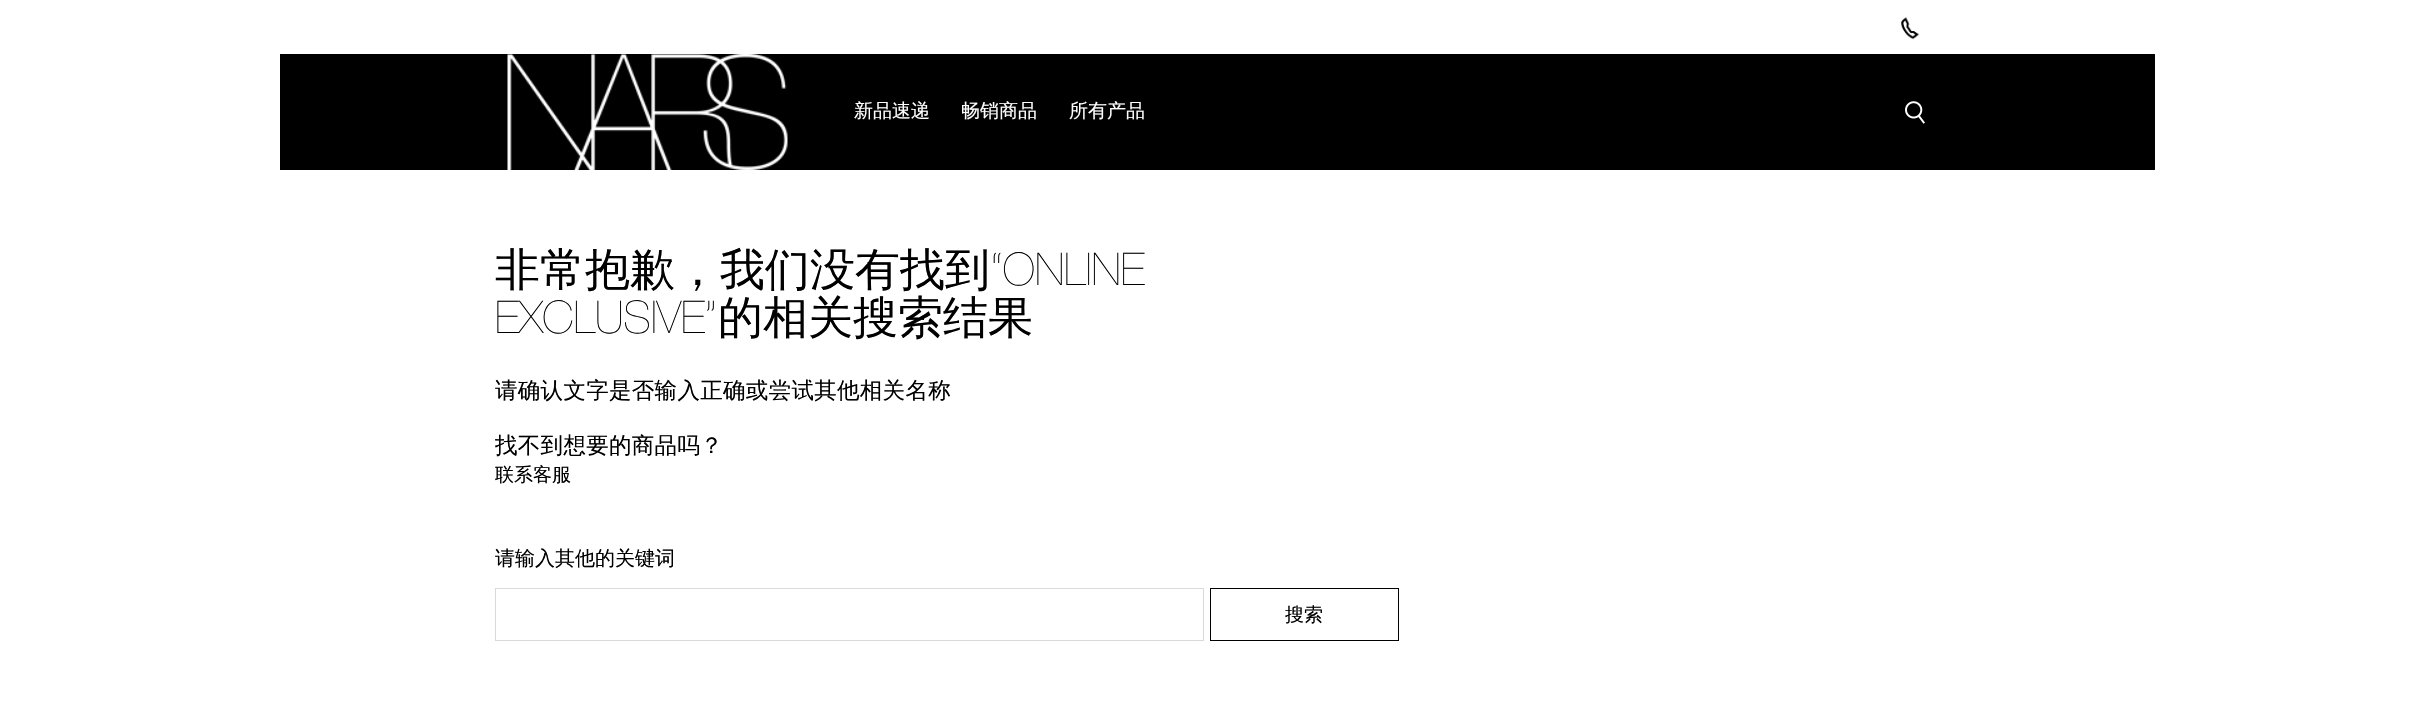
void draw(SkCanvas* canvas) {
    SkPaint paint;
    paint.setAntiAlias(true);
    auto spacedText = [&](const char* s, float x, float y, const SkFont& font, const SkPaint& ink, float letter, float word) {
        std::vector<SkGlyphID> glyphs(font.countText(s, strlen(s), SkTextEncoding::kUTF8));
        std::vector<float> xs(glyphs.size());
        font.textToGlyphs(s, strlen(s), SkTextEncoding::kUTF8, glyphs);
        font.getXPos(glyphs, xs, x);
        float extra = 0;
        for (size_t i = 0; i < glyphs.size(); i++) {
            xs[i] += extra;
            extra += letter + word * (glyphs[i] == font.unicharToGlyph(' '));
        }
        canvas->drawTextBlob(SkTextBlob::MakeFromPosHGlyphs(glyphs, xs, y, font), 0, 0, ink);
    };
    canvas->clear(0xFFFFFFFF);
    canvas->drawImageRect(SkImages::DeferredFromEncodedData(SkData::MakeFromFileName("img1.png")), SkRect::MakeXYWH(1901, 17, 19, 23), SkSamplingOptions());
    paint.setColor(0xFF000000);
    canvas->drawRect(SkRect::MakeXYWH(280, 54, 1875, 116), paint);
    canvas->drawImageRect(SkImages::DeferredFromEncodedData(SkData::MakeFromFileName("img2.png")), SkRect::MakeXYWH(507, 54, 281, 116), SkSamplingOptions());
    SkFont font1(fontMgr->matchFamilyStyle("WenQuanYi Zen Hei", SkFontStyle(500, SkFontStyle::kNormal_Width, SkFontStyle::kUpright_Slant)), 19);
    font1.setSubpixel(true);
    paint.setColor(0xFFFFFFFF);
    canvas->drawString("新品速递", 854, 117, font1, paint);
    canvas->drawString("畅销商品", 961, 117, font1, paint);
    canvas->drawString("所有产品", 1069, 117, font1, paint);
    canvas->drawImageRect(SkImages::DeferredFromEncodedData(SkData::MakeFromFileName("img3.png")), SkRect::MakeXYWH(1905, 101, 20, 23), SkSamplingOptions());
    SkFont font2(fontMgr->matchFamilyStyle("WenQuanYi Zen Hei", SkFontStyle(500, SkFontStyle::kNormal_Width, SkFontStyle::kUpright_Slant)), 45);
    font2.setSubpixel(true);
    paint.setColor(0xFF000000);
    canvas->drawString("非常抱歉，我们没有找到", 495, 285, font2, paint);
    SkFont font3(fontMgr->matchFamilyStyle("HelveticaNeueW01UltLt", SkFontStyle::Normal()), 45);
    font3.setSubpixel(true);
    canvas->drawString("“ONLINE", 990, 285, font3, paint);
    canvas->drawString("EXCLUSIVE”", 495, 333, font3, paint);
    canvas->drawString("的相关搜索结果", 718, 333, font2, paint);
    SkFont font4(fontMgr->matchFamilyStyle("WenQuanYi Zen Hei", SkFontStyle(500, SkFontStyle::kNormal_Width, SkFontStyle::kUpright_Slant)), 22.5f);
    font4.setSubpixel(true);
    spacedText("请确认文字是否输入正确或尝试其他相关名称", 495, 398, font4, paint, 0.3f, 0);
    spacedText("找不到想要的商品吗？", 495, 453, font4, paint, 0.3f, 0);
    canvas->drawString("联系客服", 495, 481, font1, paint);
    SkFont font5(fontMgr->matchFamilyStyle("WenQuanYi Zen Hei", SkFontStyle(500, SkFontStyle::kNormal_Width, SkFontStyle::kUpright_Slant)), 20);
    font5.setSubpixel(true);
    canvas->drawString("请输入其他的关键词", 495, 565, font5, paint);
    paint.setStyle(SkPaint::kStroke_Style);
    paint.setStrokeWidth(1);
    paint.setColor(0xFFD9D9D9);
    canvas->drawRect(SkRect::MakeXYWH(495.5f, 588.5f, 708, 52), paint);
    paint.setColor(0xFF000000);
    canvas->drawRect(SkRect::MakeXYWH(1210.5f, 588.5f, 188, 52), paint);
    paint.setStyle(SkPaint::kFill_Style);
    canvas->drawString("搜索", 1285, 621, font1, paint);
}
